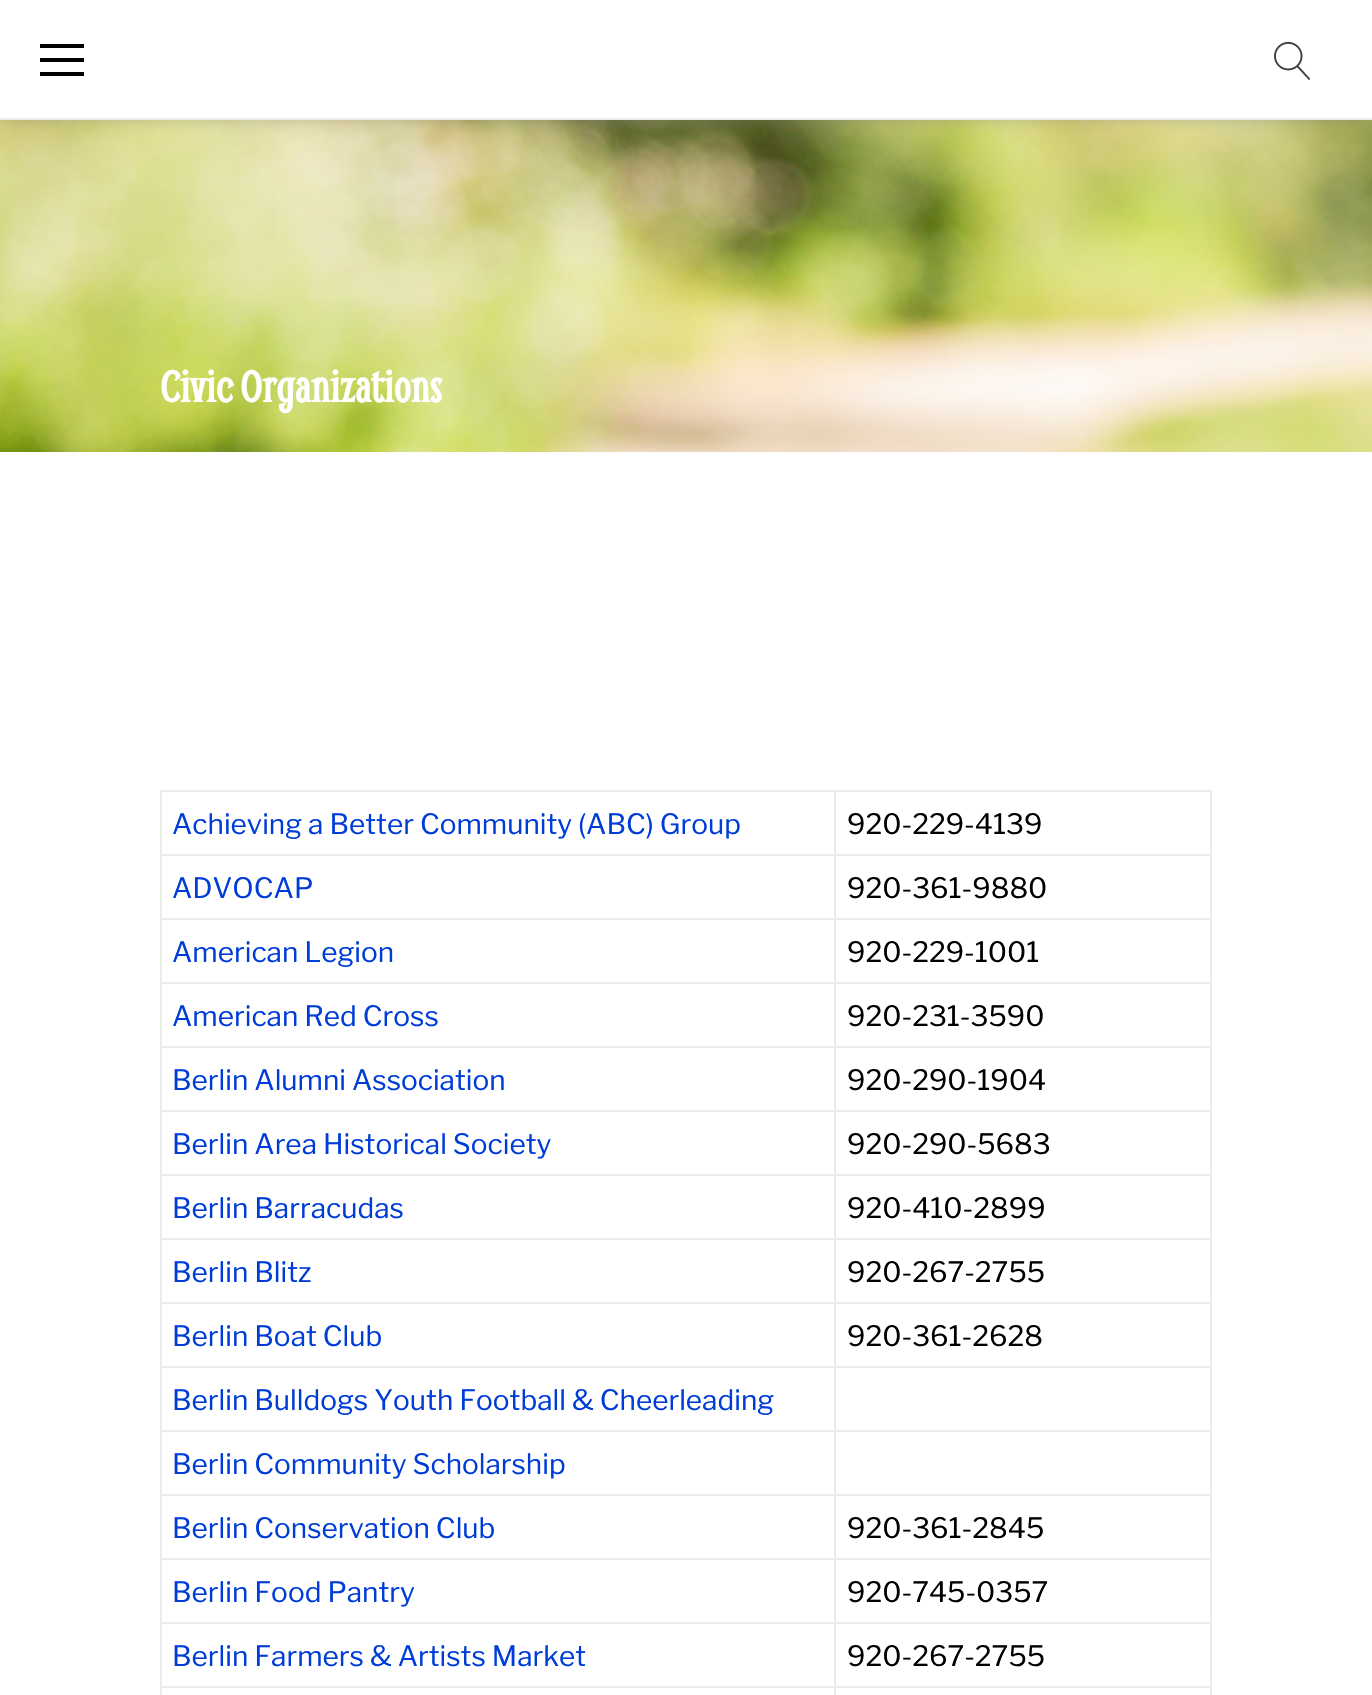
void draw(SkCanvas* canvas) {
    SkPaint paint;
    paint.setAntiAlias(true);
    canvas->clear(0xFFFFFFFF);
    canvas->drawImageRect(SkImages::DeferredFromEncodedData(SkData::MakeFromFileName("img2.png")), SkRect::MakeXYWH(0, 120, 1372, 332), SkSamplingOptions());
    paint.setColor(0x42888888);
    paint.setMaskFilter(SkMaskFilter::MakeBlur(kNormal_SkBlurStyle, 6));
    canvas->drawRect(SkRect::MakeXYWH(0, 4, 1372, 120), paint);
    paint.setMaskFilter(nullptr);
    paint.setColor(0xFFFFFFFF);
    canvas->drawRect(SkRect::MakeXYWH(0, 0, 1372, 118), paint);
    paint.setColor(0xFFECECEE);
    canvas->drawRect(SkRect::MakeXYWH(0, 118, 1372, 2), paint);
    paint.setColor(0xFF000000);
    canvas->drawRect(SkRect::MakeXYWH(40, 58, 44, 4), paint);
    canvas->drawRect(SkRect::MakeXYWH(40, 44, 44, 4), paint);
    canvas->drawRect(SkRect::MakeXYWH(40, 72, 44, 4), paint);
    canvas->drawImageRect(SkImages::DeferredFromEncodedData(SkData::MakeFromFileName("img1.png")), SkRect::MakeXYWH(1274, 41, 36, 39), SkSamplingOptions());
    SkFont font1(fontMgr->matchFamilyStyle("Smythe", SkFontStyle::Bold()), 48);
    font1.setSubpixel(true);
    paint.setColor(0xFFFFFFFF);
    canvas->drawString("Civic Organizations", 160, 402, font1, paint);
    paint.setColor(0xFFECECEE);
    canvas->drawRect(SkRect::MakeXYWH(160, 790, 1052, 2), paint);
    canvas->drawRect(SkRect::MakeXYWH(1210, 790, 2, 905), paint);
    canvas->drawRect(SkRect::MakeXYWH(160, 790, 2, 905), paint);
    SkFont font2(fontMgr->matchFamilyStyle("Libre Franklin", SkFontStyle::Normal()), 28);
    font2.setSubpixel(true);
    paint.setColor(0xFF003DD8);
    canvas->drawString("Achieving a Better Community (ABC) Group", 172, 834, font2, paint);
    paint.setColor(0xFFECECEE);
    canvas->drawRect(SkRect::MakeXYWH(834, 854, 378, 2), paint);
    canvas->drawRect(SkRect::MakeXYWH(834, 918, 378, 2), paint);
    canvas->drawRect(SkRect::MakeXYWH(834, 982, 378, 2), paint);
    canvas->drawRect(SkRect::MakeXYWH(834, 1046, 378, 2), paint);
    canvas->drawRect(SkRect::MakeXYWH(834, 1110, 378, 2), paint);
    canvas->drawRect(SkRect::MakeXYWH(834, 1174, 378, 2), paint);
    canvas->drawRect(SkRect::MakeXYWH(834, 1238, 378, 2), paint);
    canvas->drawRect(SkRect::MakeXYWH(834, 1302, 378, 2), paint);
    canvas->drawRect(SkRect::MakeXYWH(834, 1366, 378, 2), paint);
    canvas->drawRect(SkRect::MakeXYWH(834, 1430, 378, 2), paint);
    canvas->drawRect(SkRect::MakeXYWH(834, 1494, 378, 2), paint);
    canvas->drawRect(SkRect::MakeXYWH(834, 1558, 378, 2), paint);
    canvas->drawRect(SkRect::MakeXYWH(834, 1622, 378, 2), paint);
    canvas->drawRect(SkRect::MakeXYWH(834, 1686, 378, 2), paint);
    canvas->drawRect(SkRect::MakeXYWH(834, 1686, 2, 9), paint);
    canvas->drawRect(SkRect::MakeXYWH(160, 1686, 676, 2), paint);
    canvas->drawRect(SkRect::MakeXYWH(834, 1622, 2, 66), paint);
    canvas->drawRect(SkRect::MakeXYWH(160, 1622, 676, 2), paint);
    canvas->drawRect(SkRect::MakeXYWH(834, 1558, 2, 66), paint);
    canvas->drawRect(SkRect::MakeXYWH(160, 1558, 676, 2), paint);
    canvas->drawRect(SkRect::MakeXYWH(834, 1494, 2, 66), paint);
    canvas->drawRect(SkRect::MakeXYWH(160, 1494, 676, 2), paint);
    canvas->drawRect(SkRect::MakeXYWH(834, 1430, 2, 66), paint);
    canvas->drawRect(SkRect::MakeXYWH(160, 1430, 676, 2), paint);
    canvas->drawRect(SkRect::MakeXYWH(834, 1366, 2, 66), paint);
    canvas->drawRect(SkRect::MakeXYWH(160, 1366, 676, 2), paint);
    canvas->drawRect(SkRect::MakeXYWH(834, 1302, 2, 66), paint);
    canvas->drawRect(SkRect::MakeXYWH(160, 1302, 676, 2), paint);
    canvas->drawRect(SkRect::MakeXYWH(834, 1238, 2, 66), paint);
    canvas->drawRect(SkRect::MakeXYWH(160, 1238, 676, 2), paint);
    canvas->drawRect(SkRect::MakeXYWH(834, 1174, 2, 66), paint);
    canvas->drawRect(SkRect::MakeXYWH(160, 1174, 676, 2), paint);
    canvas->drawRect(SkRect::MakeXYWH(834, 1110, 2, 66), paint);
    canvas->drawRect(SkRect::MakeXYWH(160, 1110, 676, 2), paint);
    canvas->drawRect(SkRect::MakeXYWH(834, 1046, 2, 66), paint);
    canvas->drawRect(SkRect::MakeXYWH(160, 1046, 676, 2), paint);
    canvas->drawRect(SkRect::MakeXYWH(834, 982, 2, 66), paint);
    canvas->drawRect(SkRect::MakeXYWH(160, 982, 676, 2), paint);
    canvas->drawRect(SkRect::MakeXYWH(834, 918, 2, 66), paint);
    canvas->drawRect(SkRect::MakeXYWH(160, 918, 676, 2), paint);
    canvas->drawRect(SkRect::MakeXYWH(834, 854, 2, 66), paint);
    canvas->drawRect(SkRect::MakeXYWH(160, 854, 676, 2), paint);
    canvas->drawRect(SkRect::MakeXYWH(834, 790, 2, 66), paint);
    paint.setColor(0xFF000000);
    canvas->drawString("920-229-4139", 847, 834, font2, paint);
    paint.setColor(0xFF003DD8);
    canvas->drawString("ADVOCAP", 172, 898, font2, paint);
    paint.setColor(0xFF000000);
    canvas->drawString("920-361-9880", 847, 898, font2, paint);
    paint.setColor(0xFF003DD8);
    canvas->drawString("American Legion", 172, 962, font2, paint);
    paint.setColor(0xFF000000);
    canvas->drawString("920-229-1001", 847, 962, font2, paint);
    paint.setColor(0xFF003DD8);
    canvas->drawString("American Red Cross", 172, 1026, font2, paint);
    paint.setColor(0xFF000000);
    canvas->drawString("920-231-3590", 847, 1026, font2, paint);
    paint.setColor(0xFF003DD8);
    canvas->drawString("Berlin Alumni Association", 172, 1090, font2, paint);
    paint.setColor(0xFF000000);
    canvas->drawString("920-290-1904", 847, 1090, font2, paint);
    paint.setColor(0xFF003DD8);
    canvas->drawString("Berlin Area Historical Society", 172, 1154, font2, paint);
    paint.setColor(0xFF000000);
    canvas->drawString("920-290-5683", 847, 1154, font2, paint);
    paint.setColor(0xFF003DD8);
    canvas->drawString("Berlin Barracudas", 172, 1218, font2, paint);
    paint.setColor(0xFF000000);
    canvas->drawString("920-410-2899", 847, 1218, font2, paint);
    paint.setColor(0xFF003DD8);
    canvas->drawString("Berlin Blitz", 172, 1282, font2, paint);
    paint.setColor(0xFF000000);
    canvas->drawString("920-267-2755", 847, 1282, font2, paint);
    paint.setColor(0xFF003DD8);
    canvas->drawString("Berlin Boat Club", 172, 1346, font2, paint);
    paint.setColor(0xFF000000);
    canvas->drawString("920-361-2628", 847, 1346, font2, paint);
    paint.setColor(0xFF003DD8);
    canvas->drawString("Berlin Bulldogs Youth Football & Cheerleading", 172, 1410, font2, paint);
    canvas->drawString("Berlin Community Scholarship", 172, 1474, font2, paint);
    canvas->drawString("Berlin Conservation Club", 172, 1538, font2, paint);
    paint.setColor(0xFF000000);
    canvas->drawString("920-361-2845", 847, 1538, font2, paint);
    paint.setColor(0xFF003DD8);
    canvas->drawString("Berlin Food Pantry", 172, 1602, font2, paint);
    paint.setColor(0xFF000000);
    canvas->drawString("920-745-0357", 847, 1602, font2, paint);
    paint.setColor(0xFF003DD8);
    canvas->drawString("Berlin Farmers & Artists Market", 172, 1666, font2, paint);
    paint.setColor(0xFF000000);
    canvas->drawString("920-267-2755", 847, 1666, font2, paint);
}
